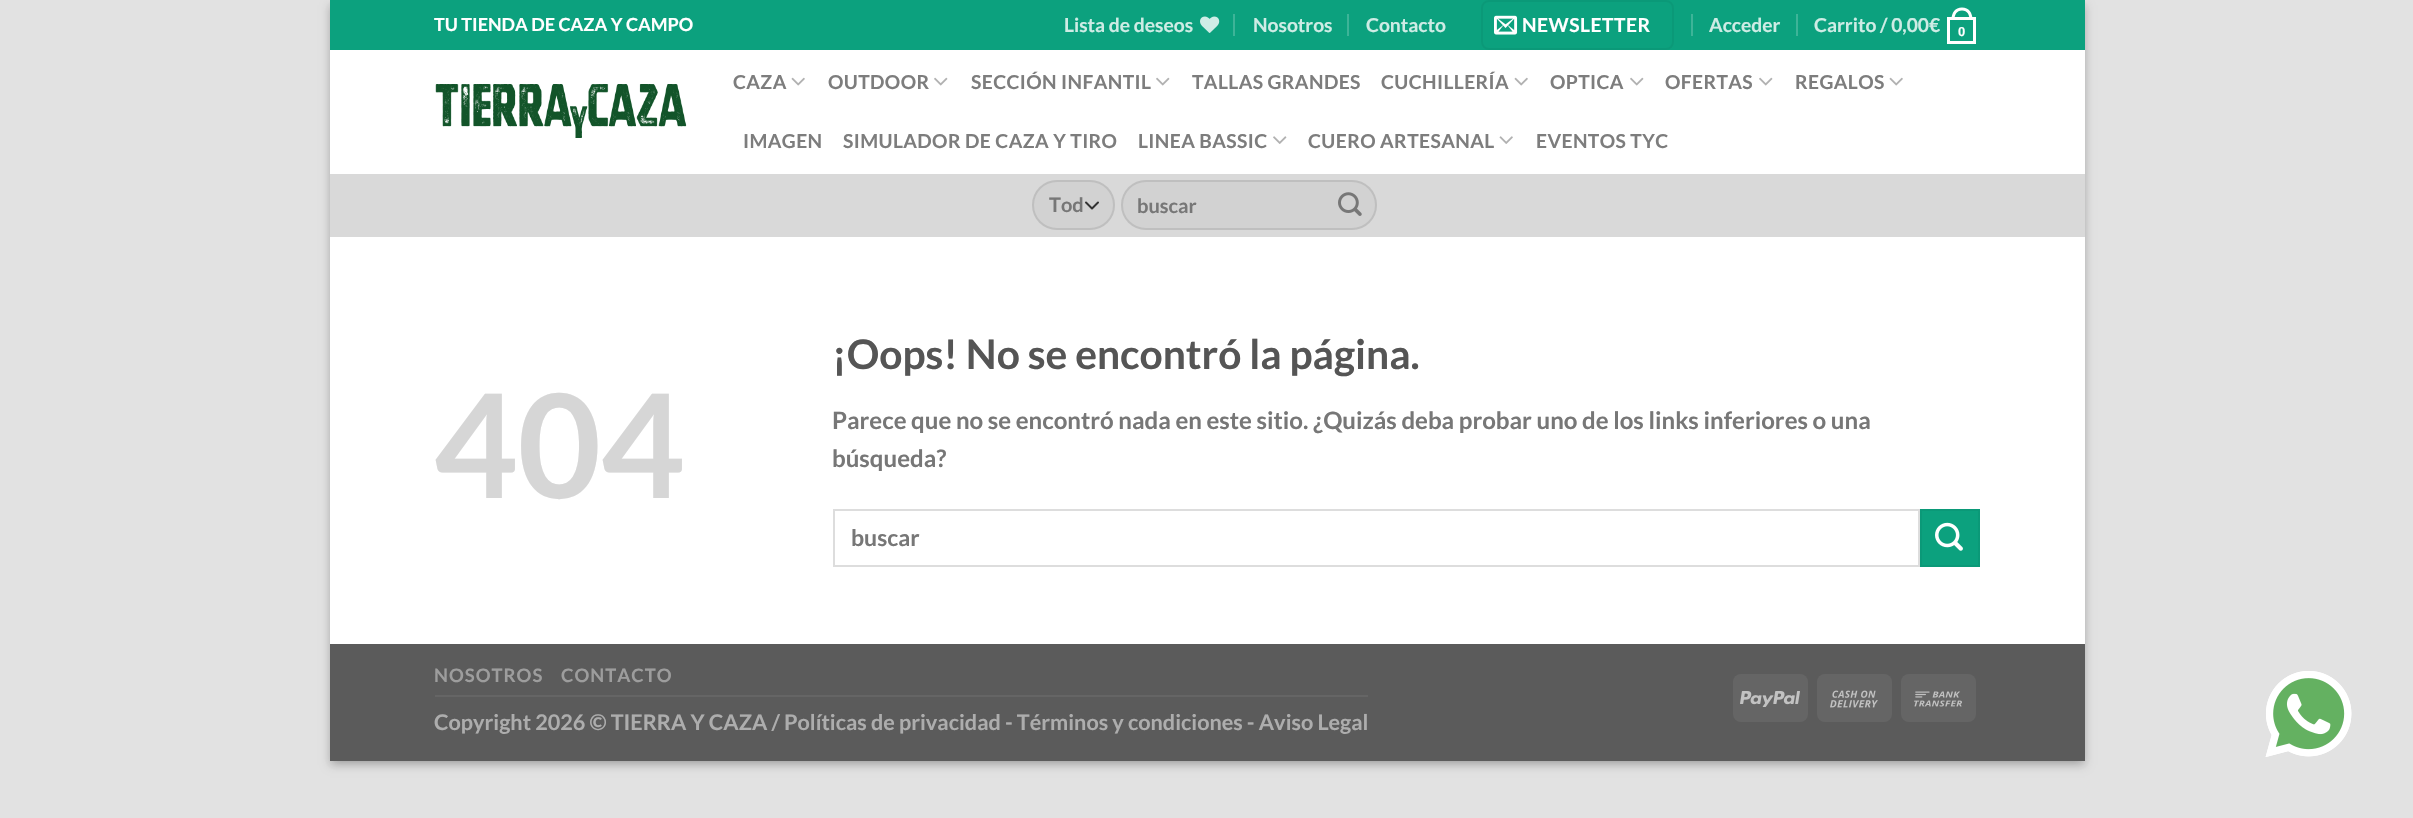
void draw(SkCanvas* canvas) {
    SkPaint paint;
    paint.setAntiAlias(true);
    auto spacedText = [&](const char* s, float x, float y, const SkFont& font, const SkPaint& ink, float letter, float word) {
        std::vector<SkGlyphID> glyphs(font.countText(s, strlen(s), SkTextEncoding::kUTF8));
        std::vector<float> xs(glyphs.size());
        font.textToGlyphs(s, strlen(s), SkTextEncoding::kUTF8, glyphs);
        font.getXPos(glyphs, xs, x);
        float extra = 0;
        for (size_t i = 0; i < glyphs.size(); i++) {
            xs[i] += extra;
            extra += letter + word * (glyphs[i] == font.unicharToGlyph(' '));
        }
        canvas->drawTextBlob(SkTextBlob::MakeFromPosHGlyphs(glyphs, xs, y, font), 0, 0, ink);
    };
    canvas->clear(0xFFE2E2E2);
    paint.setColor(0x3B000000);
    paint.setMaskFilter(SkMaskFilter::MakeBlur(kNormal_SkBlurStyle, 4.5f));
    canvas->drawRect(SkRect::MakeXYWH(330, 5, 1755, 760), paint);
    paint.setMaskFilter(nullptr);
    paint.setColor(0x29000000);
    paint.setMaskFilter(SkMaskFilter::MakeBlur(kNormal_SkBlurStyle, 4.5f));
    canvas->drawRect(SkRect::MakeXYWH(336, 11, 1743, 748), paint);
    paint.setMaskFilter(nullptr);
    paint.setColor(0xFFFFFFFF);
    canvas->drawRect(SkRect::MakeXYWH(330, 50, 1755, 594), paint);
    paint.setColor(0xFF0CA17E);
    canvas->drawRect(SkRect::MakeXYWH(330, 0, 1755, 50), paint);
    SkFont font1(fontMgr->matchFamilyStyle("Lato", SkFontStyle::Bold()), 18);
    font1.setSubpixel(true);
    paint.setColor(0xFFFFFFFF);
    canvas->drawString("TU TIENDA DE CAZA Y CAMPO", 434, 31, font1, paint);
    SkFont font2(fontMgr->matchFamilyStyle("Lato", SkFontStyle::Bold()), 19.25f);
    font2.setSubpixel(true);
    paint.setColor(0xFFCEECE5);
    canvas->drawString("Lista de deseos", 1064, 32, font2, paint);
    canvas->drawImageRect(SkImages::DeferredFromEncodedData(SkData::MakeFromFileName("img1.png")), SkRect::MakeXYWH(1200, 16, 20, 17), SkSamplingOptions());
    paint.setColor(0xFF3DB498);
    canvas->drawRect(SkRect::MakeXYWH(1233, 14, 2, 22), paint);
    paint.setColor(0xFFCEECE5);
    canvas->drawString("Nosotros", 1253, 32, font2, paint);
    paint.setColor(0xFF3DB498);
    canvas->drawRect(SkRect::MakeXYWH(1347, 14, 2, 22), paint);
    paint.setColor(0xFFCEECE5);
    canvas->drawString("Contacto", 1366, 32, font2, paint);
    paint.setStyle(SkPaint::kStroke_Style);
    paint.setStrokeWidth(2);
    paint.setColor(0xFF0B9978);
    canvas->drawRoundRect(SkRect::MakeXYWH(1482, 1, 191, 48), 7, 7, paint);
    canvas->drawImageRect(SkImages::DeferredFromEncodedData(SkData::MakeFromFileName("img2.png")), SkRect::MakeXYWH(1494, 15, 24, 20), SkSamplingOptions());
    paint.setStyle(SkPaint::kFill_Style);
    paint.setColor(0xFFFFFFFF);
    spacedText("NEWSLETTER", 1522, 32, font2, paint, 0.5f, 0);
    paint.setColor(0xFF3DB498);
    canvas->drawRect(SkRect::MakeXYWH(1691, 14, 2, 22), paint);
    paint.setColor(0xFFCEECE5);
    canvas->drawString("Acceder", 1709, 32, font2, paint);
    paint.setColor(0xFF3DB498);
    canvas->drawRect(SkRect::MakeXYWH(1796, 14, 2, 22), paint);
    paint.setColor(0xFFCEECE5);
    canvas->drawString("Carrito / 0,00€", 1814, 32, font2, paint);
    paint.setStyle(SkPaint::kStroke_Style);
    paint.setStrokeWidth(3);
    paint.setColor(0xFFFFFFFF);
    canvas->drawRect(SkRect::MakeXYWH(1948.5f, 18.5f, 26, 24), paint);
    paint.setStyle(SkPaint::kFill_Style);
    canvas->drawPath(SkPathBuilder(SkPathFillType::kEvenOdd).moveTo(1962, 7.5f).cubicTo(1969, 7.5f, 1972.5f, 13, 1972.5f, 19.5f).lineTo(1951.5f, 19.5f).cubicTo(1951.5f, 13, 1955, 7.5f, 1962, 7.5f).close().moveTo(1962, 10.5f).cubicTo(1967.5f, 10.5f, 1969.5f, 15, 1969.5f, 19.5f).lineTo(1954.5f, 19.5f).cubicTo(1954.5f, 15, 1956.5f, 10.5f, 1962, 10.5f).close().detach(), paint);
    SkFont font3(fontMgr->matchFamilyStyle("Liberation Sans", SkFontStyle::Bold()), 13);
    font3.setSubpixel(true);
    canvas->drawString("0", 1958, 36, font3, paint);
    canvas->drawImageRect(SkImages::DeferredFromEncodedData(SkData::MakeFromFileName("img3.png")), SkRect::MakeXYWH(435, 84, 252, 54), SkSamplingOptions());
    paint.setColor(0xFF7D7D7D);
    spacedText("CAZA", 733, 89, font2, paint, 0.4f, 0);
    canvas->drawImageRect(SkImages::DeferredFromEncodedData(SkData::MakeFromFileName("img4.png")), SkRect::MakeXYWH(791, 77, 14, 9), SkSamplingOptions());
    spacedText("OUTDOOR", 828, 89, font2, paint, 0.4f, 0);
    canvas->drawImageRect(SkImages::DeferredFromEncodedData(SkData::MakeFromFileName("img5.png")), SkRect::MakeXYWH(934, 77, 14, 9), SkSamplingOptions());
    spacedText("SECCIÓN INFANTIL", 971, 89, font2, paint, 0.4f, 0);
    canvas->drawImageRect(SkImages::DeferredFromEncodedData(SkData::MakeFromFileName("img5.png")), SkRect::MakeXYWH(1156, 77, 14, 9), SkSamplingOptions());
    spacedText("TALLAS GRANDES", 1192, 89, font2, paint, 0.4f, 0);
    spacedText("CUCHILLERÍA", 1381, 89, font2, paint, 0.4f, 0);
    canvas->drawImageRect(SkImages::DeferredFromEncodedData(SkData::MakeFromFileName("img4.png")), SkRect::MakeXYWH(1514, 77, 14, 9), SkSamplingOptions());
    spacedText("OPTICA", 1550, 89, font2, paint, 0.4f, 0);
    canvas->drawImageRect(SkImages::DeferredFromEncodedData(SkData::MakeFromFileName("img5.png")), SkRect::MakeXYWH(1630, 77, 14, 9), SkSamplingOptions());
    spacedText("OFERTAS", 1665, 89, font2, paint, 0.4f, 0);
    canvas->drawImageRect(SkImages::DeferredFromEncodedData(SkData::MakeFromFileName("img5.png")), SkRect::MakeXYWH(1759, 77, 14, 9), SkSamplingOptions());
    spacedText("REGALOS", 1795, 89, font2, paint, 0.4f, 0);
    canvas->drawImageRect(SkImages::DeferredFromEncodedData(SkData::MakeFromFileName("img4.png")), SkRect::MakeXYWH(1889, 77, 14, 9), SkSamplingOptions());
    spacedText("IMAGEN", 743, 148, font2, paint, 0.4f, 0);
    spacedText("SIMULADOR DE CAZA Y TIRO", 843, 148, font2, paint, 0.4f, 0);
    spacedText("LINEA BASSIC", 1138, 148, font2, paint, 0.4f, 0);
    canvas->drawImageRect(SkImages::DeferredFromEncodedData(SkData::MakeFromFileName("img6.png")), SkRect::MakeXYWH(1273, 136, 14, 8), SkSamplingOptions());
    spacedText("CUERO ARTESANAL", 1308, 148, font2, paint, 0.4f, 0);
    canvas->drawImageRect(SkImages::DeferredFromEncodedData(SkData::MakeFromFileName("img7.png")), SkRect::MakeXYWH(1499, 136, 14, 8), SkSamplingOptions());
    spacedText("EVENTOS TYC", 1536, 148, font2, paint, 0.4f, 0);
    paint.setColor(0xFFD9D9D9);
    canvas->drawRect(SkRect::MakeXYWH(330, 174, 1755, 63), paint);
    paint.setColor(0xFFD2D2D2);
    canvas->drawRoundRect(SkRect::MakeXYWH(1032, 180, 83, 50), 25, 25, paint);
    paint.setStyle(SkPaint::kStroke_Style);
    paint.setStrokeWidth(2);
    paint.setStrokeCap(SkPaint::kRound_Cap);
    paint.setStrokeJoin(SkPaint::kRound_Join);
    paint.setColor(0xFF333333);
    canvas->drawPath(SkPathBuilder().moveTo(1086, 202.5f).lineTo(1092, 208.5f).lineTo(1098, 202.5f).detach(), paint);
    paint.setStrokeCap(SkPaint::kButt_Cap);
    paint.setStrokeJoin(SkPaint::kMiter_Join);
    paint.setColor(0x17000000);
    canvas->drawRoundRect(SkRect::MakeXYWH(1033, 181, 81, 48), 24, 24, paint);
    SkFont font4(fontMgr->matchFamilyStyle("Lato", SkFontStyle::Bold()), 20);
    font4.setSubpixel(true);
    paint.setStyle(SkPaint::kFill_Style);
    paint.setColor(0xFF777777);
    canvas->drawString("Tod", 1049, 212, font4, paint);
    paint.setColor(0xFFD2D2D2);
    canvas->drawRoundRect(SkRect::MakeXYWH(1121, 180, 256, 50), 25, 25, paint);
    paint.setStyle(SkPaint::kStroke_Style);
    paint.setColor(0x17000000);
    canvas->drawRoundRect(SkRect::MakeXYWH(1122, 181, 254, 48), 24, 24, paint);
    paint.setStyle(SkPaint::kFill_Style);
    paint.setColor(0xFF777777);
    canvas->drawString("buscar", 1137, 213, font4, paint);
    canvas->drawImageRect(SkImages::DeferredFromEncodedData(SkData::MakeFromFileName("img8.png")), SkRect::MakeXYWH(1338, 192, 24, 24), SkSamplingOptions());
    SkFont font5(fontMgr->matchFamilyStyle("Lato", SkFontStyle::Bold()), 144);
    font5.setSubpixel(true);
    paint.setColor(0xFFD6D6D6);
    canvas->drawString("404", 434, 498, font5, paint);
    SkFont font6(fontMgr->matchFamilyStyle("Lato", SkFontStyle::Bold()), 40.75f);
    font6.setSubpixel(true);
    paint.setColor(0xFF555555);
    canvas->drawString("¡Oops! No se encontró la página.", 832, 369, font6, paint);
    SkFont font7(fontMgr->matchFamilyStyle("Lato", SkFontStyle::Bold()), 24);
    font7.setSubpixel(true);
    paint.setColor(0xFF777777);
    canvas->drawString("Parece que no se encontró nada en este sitio. ¿Quizás deba probar uno de los links inferiores o una", 832, 429, font7, paint);
    canvas->drawString("búsqueda?", 832, 467, font7, paint);
    paint.setStyle(SkPaint::kStroke_Style);
    paint.setColor(0xFFDDDDDD);
    canvas->drawRect(SkRect::MakeXYWH(834, 510, 1085, 56), paint);
    SkFont font8(fontMgr->matchFamilyStyle("Lato", SkFontStyle::Bold()), 23);
    font8.setSubpixel(true);
    paint.setStyle(SkPaint::kFill_Style);
    paint.setColor(0xFF777777);
    canvas->drawString("buscar", 851, 546, font8, paint);
    paint.setColor(0xFF0CA17E);
    canvas->drawRect(SkRect::MakeXYWH(1921, 510, 58, 56), paint);
    paint.setStyle(SkPaint::kStroke_Style);
    paint.setColor(0xFF0B9978);
    canvas->drawRect(SkRect::MakeXYWH(1921, 510, 58, 56), paint);
    canvas->drawImageRect(SkImages::DeferredFromEncodedData(SkData::MakeFromFileName("img9.png")), SkRect::MakeXYWH(1935, 522, 28, 29), SkSamplingOptions());
    paint.setStyle(SkPaint::kFill_Style);
    paint.setColor(0xFF5B5B5B);
    canvas->drawRect(SkRect::MakeXYWH(330, 644, 1755, 117), paint);
    paint.setColor(0xFF656565);
    canvas->drawRect(SkRect::MakeXYWH(435, 695, 933, 2), paint);
    SkFont font9(fontMgr->matchFamilyStyle("Lato", SkFontStyle::Bold()), 18.5f);
    font9.setSubpixel(true);
    paint.setColor(0xFF9D9D9D);
    spacedText("NOSOTROS", 434, 682, font9, paint, 1, 0);
    spacedText("CONTACTO", 561, 682, font9, paint, 1, 0);
    SkFont font10(fontMgr->matchFamilyStyle("Lato", SkFontStyle::Bold()), 21.6f);
    font10.setSubpixel(true);
    paint.setColor(0xFFADADAD);
    canvas->drawString("Copyright 2026 © TIERRA Y CAZA / Políticas de privacidad - Términos y condiciones - Aviso Legal", 434, 730, font10, paint);
    paint.setColor(0xFF656565);
    canvas->drawRoundRect(SkRect::MakeXYWH(1733, 674, 75, 48), 8, 8, paint);
    canvas->drawImageRect(SkImages::DeferredFromEncodedData(SkData::MakeFromFileName("img10.png")), SkRect::MakeXYWH(1740, 691, 60, 16), SkSamplingOptions());
    canvas->drawRoundRect(SkRect::MakeXYWH(1817, 674, 75, 48), 8, 8, paint);
    canvas->drawImageRect(SkImages::DeferredFromEncodedData(SkData::MakeFromFileName("img11.png")), SkRect::MakeXYWH(1830, 690, 48, 18), SkSamplingOptions());
    canvas->drawRoundRect(SkRect::MakeXYWH(1901, 674, 75, 48), 8, 8, paint);
    canvas->drawImageRect(SkImages::DeferredFromEncodedData(SkData::MakeFromFileName("img12.png")), SkRect::MakeXYWH(1914, 691, 48, 16), SkSamplingOptions());
    canvas->drawImageRect(SkImages::DeferredFromEncodedData(SkData::MakeFromFileName("img13.png")), SkRect::MakeXYWH(2265, 671, 87, 86), SkSamplingOptions());
}
